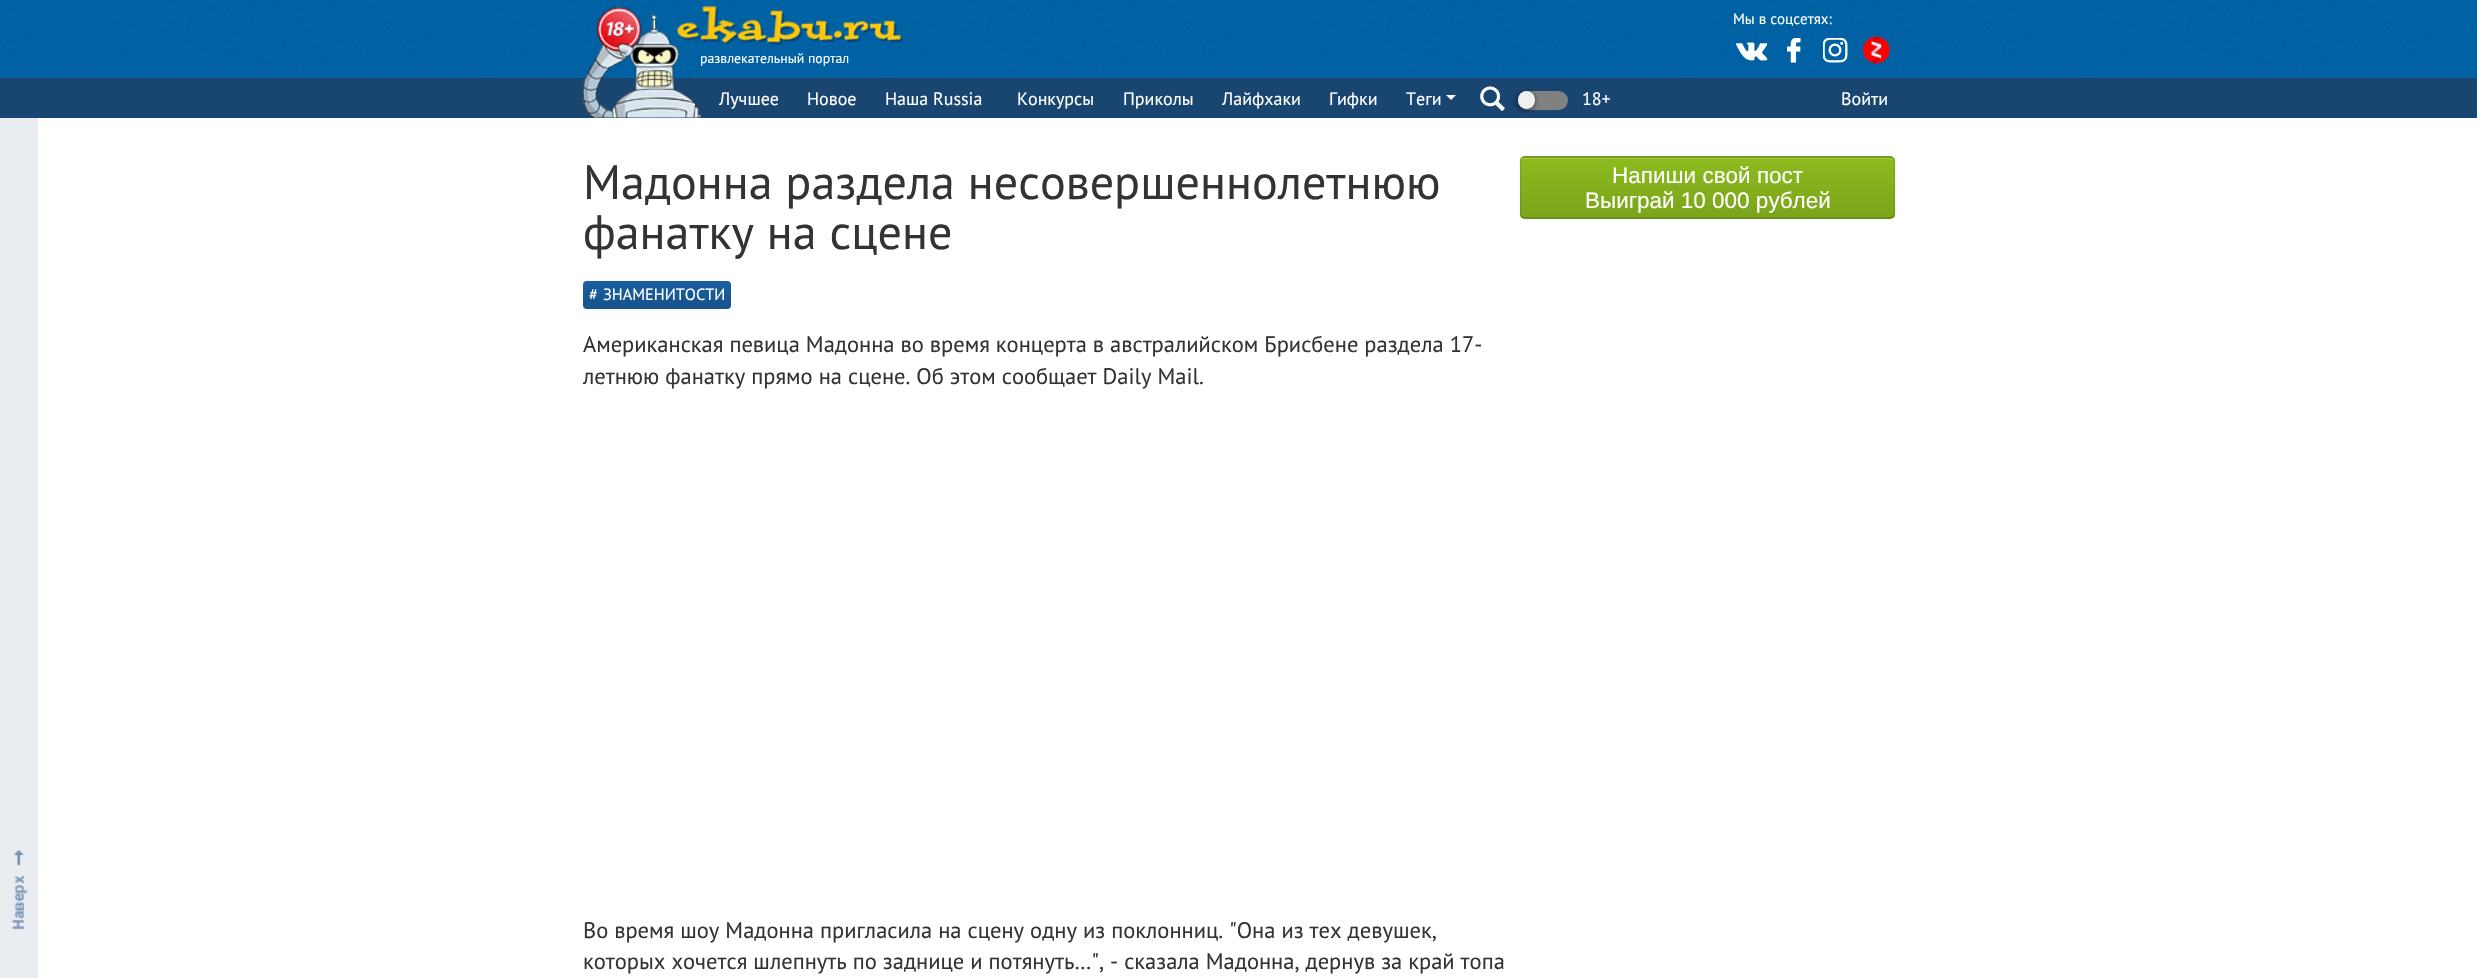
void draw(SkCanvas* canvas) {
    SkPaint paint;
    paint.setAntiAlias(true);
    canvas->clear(0xFFFFFFFF);
    paint.setColor(0xFFE9EDF2);
    canvas->drawRect(SkRect::MakeXYWH(0, 118, 38, 860), paint);
    canvas->drawImageRect(SkImages::DeferredFromEncodedData(SkData::MakeFromFileName("img1.png")), SkRect::MakeXYWH(12, 850, 16, 80), SkSamplingOptions());
    paint.setColor(0xFF135F9D);
    canvas->drawRect(SkRect::MakeXYWH(0, 77, 2477, 1), paint);
    canvas->drawImageRect(SkImages::DeferredFromEncodedData(SkData::MakeFromFileName("img2.png")), SkRect::MakeXYWH(0, 0, 2477, 78), SkSamplingOptions());
    canvas->drawImageRect(SkImages::DeferredFromEncodedData(SkData::MakeFromFileName("img8.png")), SkRect::MakeXYWH(677, 6, 226, 39), SkSamplingOptions());
    SkFont font1(fontMgr->matchFamilyStyle("PT Sans", SkFontStyle::Normal()), 13.75f);
    font1.setSubpixel(true);
    paint.setColor(0xFFFFFFFF);
    canvas->drawString("развлекательный портал", 700, 63, font1, paint);
    paint.setColor(0xFF194571);
    canvas->drawRect(SkRect::MakeXYWH(0, 78, 2477, 40), paint);
    canvas->drawImageRect(SkImages::DeferredFromEncodedData(SkData::MakeFromFileName("img3.png")), SkRect::MakeXYWH(582, 7, 120, 111), SkSamplingOptions());
    SkFont font2(fontMgr->matchFamilyStyle("PT Sans", SkFontStyle::Normal()), 15);
    font2.setSubpixel(true);
    paint.setColor(0xFFFFFFFF);
    canvas->drawString("Мы в соцсетях:", 1733, 24, font2, paint);
    canvas->drawImageRect(SkImages::DeferredFromEncodedData(SkData::MakeFromFileName("img4.png")), SkRect::MakeXYWH(1736, 42, 32, 19), SkSamplingOptions());
    canvas->drawImageRect(SkImages::DeferredFromEncodedData(SkData::MakeFromFileName("img5.png")), SkRect::MakeXYWH(1787, 38, 14, 25), SkSamplingOptions());
    canvas->drawImageRect(SkImages::DeferredFromEncodedData(SkData::MakeFromFileName("img6.png")), SkRect::MakeXYWH(1823, 38, 25, 25), SkSamplingOptions());
    canvas->drawImageRect(SkImages::DeferredFromEncodedData(SkData::MakeFromFileName("img7.png")), SkRect::MakeXYWH(1862, 36, 29, 28), SkSamplingOptions());
    SkFont font3(fontMgr->matchFamilyStyle("PT Sans", SkFontStyle::Normal()), 18);
    font3.setSubpixel(true);
    canvas->drawString("Лучшее", 719, 105, font3, paint);
    canvas->drawString("Новое", 807, 105, font3, paint);
    canvas->drawString("Наша Russia", 885, 105, font3, paint);
    canvas->drawString("Конкурсы", 1017, 105, font3, paint);
    canvas->drawString("Приколы", 1123, 105, font3, paint);
    canvas->drawString("Лайфхаки", 1222, 105, font3, paint);
    canvas->drawString("Гифки", 1329, 105, font3, paint);
    canvas->drawString("Теги", 1406, 105, font3, paint);
    canvas->drawPath(SkPathBuilder().moveTo(1446, 95).lineTo(1456, 95).lineTo(1451, 100).close().detach(), paint);
    canvas->drawImageRect(SkImages::DeferredFromEncodedData(SkData::MakeFromFileName("img9.png")), SkRect::MakeXYWH(1480, 86, 25, 25), SkSamplingOptions());
    paint.setColor(0xFF818181);
    canvas->drawRoundRect(SkRect::MakeXYWH(1518, 91, 50, 19), 9.5f, 9.5f, paint);
    paint.setColor(0x66000000);
    paint.setMaskFilter(SkMaskFilter::MakeBlur(kNormal_SkBlurStyle, 2));
    canvas->drawRoundRect(SkRect::MakeXYWH(1516, 91, 20, 20), 10, 10, paint);
    paint.setMaskFilter(nullptr);
    paint.setColor(0xFFF1F1F1);
    canvas->drawRoundRect(SkRect::MakeXYWH(1518, 91, 17, 18), 8.5f, 8.5f, paint);
    paint.setColor(0xFFFFFFFF);
    canvas->drawString("18+", 1582, 105, font3, paint);
    canvas->drawString("Войти", 1841, 105, font3, paint);
    SkFont font4(fontMgr->matchFamilyStyle("PT Sans", SkFontStyle::Normal()), 48.1f);
    font4.setSubpixel(true);
    paint.setColor(0xFF333333);
    canvas->drawString("Мадонна раздела несовершеннолетнюю", 583, 199, font4, paint);
    canvas->drawString("фанатку на сцене", 583, 249, font4, paint);
    {
        const SkColor colors[] = {0xFF1B5FA1, 0xFF17528B};
        const float stops[] = {0, 1};
        const SkPoint ends[] = {{657, 281}, {657, 309}};
        paint.setShader(SkGradientShader::MakeLinear(ends, colors, stops, 2, SkTileMode::kClamp));
        paint.setAlpha(255);
    }
    canvas->drawRoundRect(SkRect::MakeXYWH(583, 281, 148, 28), 4, 4, paint);
    SkFont font5(fontMgr->matchFamilyStyle("PT Sans", SkFontStyle::Normal()), 16.25f);
    font5.setSubpixel(true);
    paint.setShader(nullptr);
    paint.setColor(0xFFFFFFFF);
    canvas->drawString("#", 589, 300, font5, paint);
    canvas->drawString("ЗНАМЕНИТОСТИ", 603, 300, font5, paint);
    SkFont font6(fontMgr->matchFamilyStyle("PT Sans", SkFontStyle::Normal()), 22.5f);
    font6.setSubpixel(true);
    paint.setColor(0xFF333333);
    canvas->drawString("Американская певица Мадонна во время концерта в австралийском Брисбене раздела 17-", 583, 352, font6, paint);
    canvas->drawString("летнюю фанатку прямо на сцене. Об этом сообщает Daily Mail.", 583, 384, font6, paint);
    canvas->drawString("Во время шоу Мадонна пригласила на сцену одну из поклонниц. \"Она из тех девушек,", 583, 938, font6, paint);
    canvas->drawString("которых хочется шлепнуть по заднице и потянуть…\", - сказала Мадонна, дернув за край топа", 583, 969, font6, paint);
    paint.setColor(0x0D000000);
    paint.setMaskFilter(SkMaskFilter::MakeBlur(kNormal_SkBlurStyle, 1));
    canvas->drawRoundRect(SkRect::MakeXYWH(1520, 158, 375, 62), 5, 5, paint);
    paint.setMaskFilter(nullptr);
    paint.setColor(0xFF7AA41B);
    canvas->drawRoundRect(SkRect::MakeXYWH(1520, 156, 375, 63), 5, 5, paint);
    canvas->save();
    canvas->clipPath(SkPathBuilder().moveTo(1525, 156).lineTo(1890, 156).cubicTo(1893, 156, 1895, 158, 1895, 161).lineTo(1895, 214).cubicTo(1895, 217, 1893, 219, 1890, 219).lineTo(1525, 219).cubicTo(1522, 219, 1520, 217, 1520, 214).lineTo(1520, 161).cubicTo(1520, 158, 1522, 156, 1525, 156).close().detach(), true);
    {
        const SkColor colors[] = {0xFF8DBC1E, 0xFF7AA41B};
        const float stops[] = {0, 1};
        const SkPoint ends[] = {{1708, 157}, {1708, 218}};
        paint.setShader(SkGradientShader::MakeLinear(ends, colors, stops, 2, SkTileMode::kClamp));
        paint.setAlpha(255);
    }
    canvas->drawRect(SkRect::MakeXYWH(1520, 158, 375, 60), paint);
    canvas->restore();
    paint.setShader(nullptr);
    paint.setColor(0xFFA4C94B);
    canvas->drawPath(SkPathBuilder().moveTo(1525, 159).lineTo(1890, 159).cubicTo(1892, 159, 1894, 160, 1894, 162).cubicTo(1894, 160, 1892, 158, 1890, 158).lineTo(1525, 158).cubicTo(1523, 158, 1521, 160, 1521, 162).cubicTo(1521, 160, 1523, 159, 1525, 159).close().detach(), paint);
    paint.setStyle(SkPaint::kStroke_Style);
    paint.setStrokeWidth(1.2f);
    paint.setColor(0xFF5C7B14);
    canvas->drawPath(SkPathBuilder().moveTo(1893, 217).lineTo(1890, 218).lineTo(1525, 218).lineTo(1522, 217).detach(), paint);
    paint.setColor(0x1A000000);
    canvas->drawPath(SkPathBuilder().moveTo(1522, 217).cubicTo(1521, 216, 1520.5f, 215, 1520.5f, 214).lineTo(1520.5f, 161).cubicTo(1520.5f, 160, 1521, 159, 1522, 158).cubicTo(1522.5f, 157.5f, 1524, 157, 1525, 157).lineTo(1890, 157).cubicTo(1891, 157, 1892.5f, 157.5f, 1893, 158).cubicTo(1894, 159, 1894.5f, 160, 1894.5f, 161).lineTo(1894.5f, 214).cubicTo(1894.5f, 215, 1894, 216, 1893, 217).detach(), paint);
    SkFont font7(fontMgr->matchFamilyStyle("Liberation Sans", SkFontStyle::Normal()), 22.5f);
    font7.setSubpixel(true);
    paint.setStyle(SkPaint::kFill_Style);
    paint.setColor(0xFFFFFFFF);
    canvas->drawString("Напиши свой пост", 1612, 183, font7, paint);
    canvas->drawString("Выиграй 10 000 рублей", 1585, 208, font7, paint);
}
